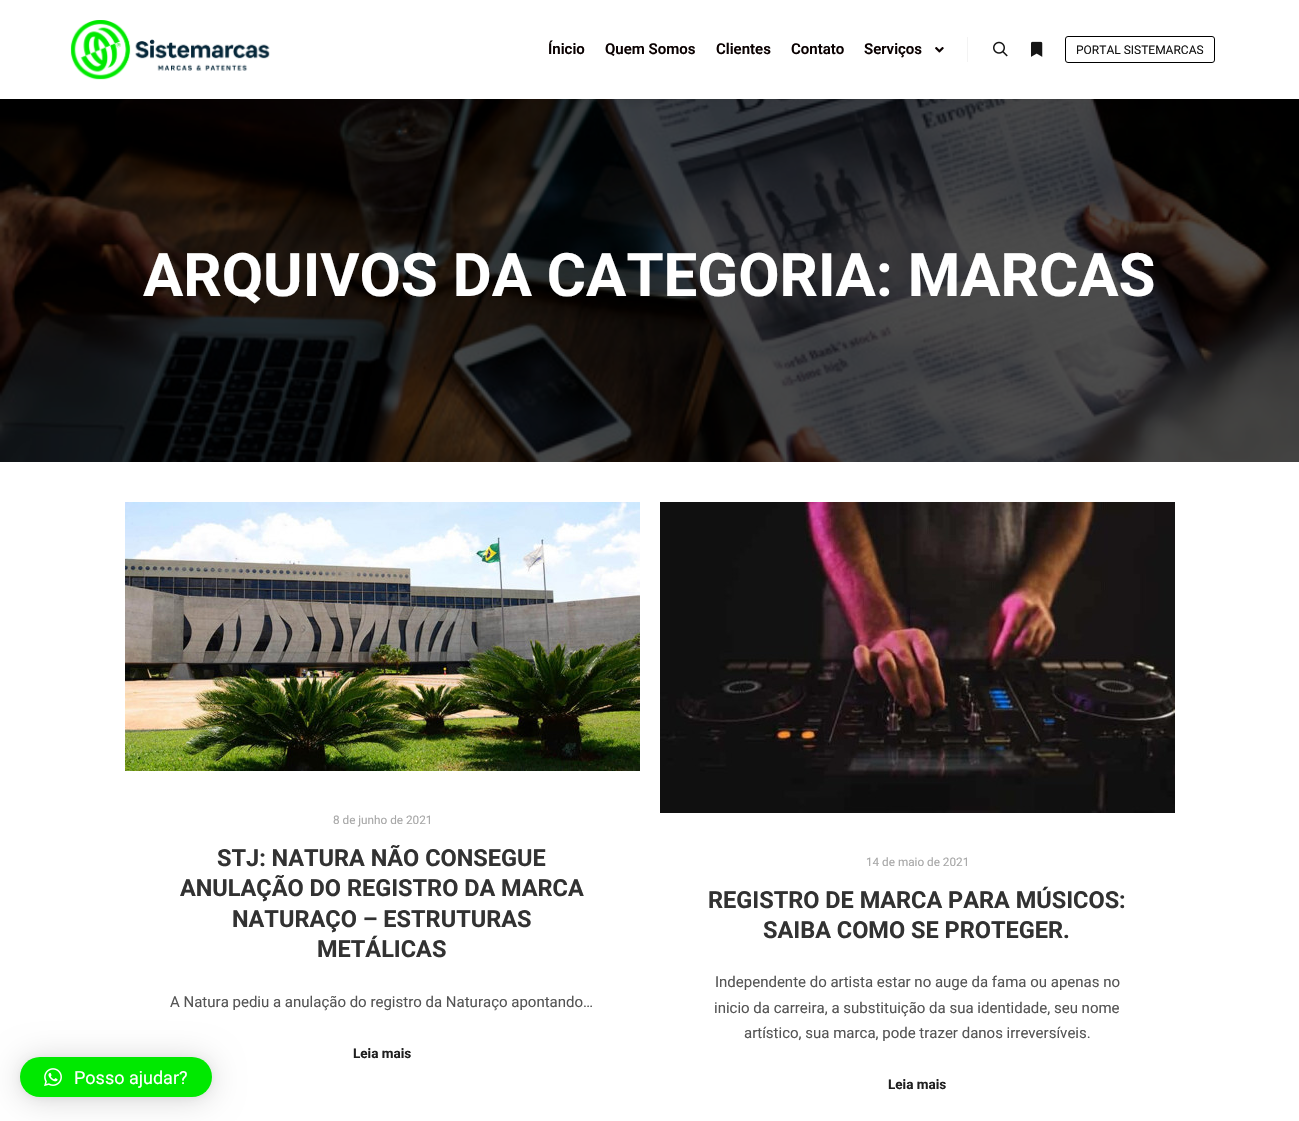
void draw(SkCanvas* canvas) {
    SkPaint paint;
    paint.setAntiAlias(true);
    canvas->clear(0xFFFFFFFF);
    paint.setColor(0x29000000);
    paint.setMaskFilter(SkMaskFilter::MakeBlur(kNormal_SkBlurStyle, 16));
    canvas->drawRoundRect(SkRect::MakeXYWH(20, 1059, 192, 40), 20, 20, paint);
    paint.setMaskFilter(nullptr);
    paint.setColor(0x0F000000);
    paint.setMaskFilter(SkMaskFilter::MakeBlur(kNormal_SkBlurStyle, 3));
    canvas->drawRoundRect(SkRect::MakeXYWH(20, 1058, 192, 40), 20, 20, paint);
    paint.setMaskFilter(nullptr);
    paint.setColor(0xFF00E900);
    canvas->drawRoundRect(SkRect::MakeXYWH(20, 1057, 192, 40), 20, 20, paint);
    canvas->drawImageRect(SkImages::DeferredFromEncodedData(SkData::MakeFromFileName("img1.png")), SkRect::MakeXYWH(44, 1068, 18, 19), SkSamplingOptions());
    SkFont font1(fontMgr->matchFamilyStyle("Roboto", SkFontStyle::Normal()), 18);
    font1.setSubpixel(true);
    paint.setColor(0xFFFFFFFF);
    canvas->drawString("Posso ajudar?", 74, 1084, font1, paint);
    canvas->drawImageRect(SkImages::DeferredFromEncodedData(SkData::MakeFromFileName("img6.png")), SkRect::MakeXYWH(0, 99, 1299, 363), SkSamplingOptions());
    paint.setColor(0x17000000);
    paint.setMaskFilter(SkMaskFilter::MakeBlur(kNormal_SkBlurStyle, 6));
    canvas->drawRect(SkRect::MakeXYWH(0, 0, 1299, 99), paint);
    paint.setMaskFilter(nullptr);
    paint.setColor(0xFFFFFFFF);
    canvas->drawRect(SkRect::MakeXYWH(0, 0, 1299, 99), paint);
    canvas->drawImageRect(SkImages::DeferredFromEncodedData(SkData::MakeFromFileName("img2.png")), SkRect::MakeXYWH(70, 20, 200, 60), SkSamplingOptions());
    SkFont font2(fontMgr->matchFamilyStyle("Roboto", SkFontStyle(600, SkFontStyle::kNormal_Width, SkFontStyle::kUpright_Slant)), 15);
    font2.setSubpixel(true);
    paint.setColor(0xFF0A0101);
    canvas->drawString("Ínicio", 548, 54, font2, paint);
    canvas->drawString("Quem Somos", 605, 54, font2, paint);
    canvas->drawString("Clientes", 716, 54, font2, paint);
    canvas->drawString("Contato", 791, 54, font2, paint);
    canvas->drawString("Serviços", 864, 54, font2, paint);
    canvas->drawImageRect(SkImages::DeferredFromEncodedData(SkData::MakeFromFileName("img3.png")), SkRect::MakeXYWH(935, 47, 9, 6), SkSamplingOptions());
    paint.setColor(0xFFF3F3F3);
    canvas->drawRect(SkRect::MakeXYWH(967, 37, 1, 25), paint);
    canvas->drawImageRect(SkImages::DeferredFromEncodedData(SkData::MakeFromFileName("img4.png")), SkRect::MakeXYWH(993, 41, 15, 16), SkSamplingOptions());
    canvas->drawImageRect(SkImages::DeferredFromEncodedData(SkData::MakeFromFileName("img5.png")), SkRect::MakeXYWH(1031, 41, 12, 16), SkSamplingOptions());
    paint.setStyle(SkPaint::kStroke_Style);
    paint.setStrokeWidth(1);
    paint.setColor(0xFF000000);
    canvas->drawRoundRect(SkRect::MakeXYWH(1065.5f, 36.5f, 149, 26), 2.5f, 2.5f, paint);
    SkFont font3(fontMgr->matchFamilyStyle("Roboto", SkFontStyle::Normal()), 12);
    font3.setSubpixel(true);
    paint.setStyle(SkPaint::kFill_Style);
    paint.setColor(0xFF151515);
    canvas->drawString("PORTAL SISTEMARCAS", 1076, 54, font3, paint);
    SkFont font4(fontMgr->matchFamilyStyle("Roboto", SkFontStyle::Bold()), 60);
    font4.setSubpixel(true);
    paint.setColor(0xFFFFFFFF);
    canvas->drawString("ARQUIVOS DA CATEGORIA: MARCAS", 143, 296, font4, paint);
    canvas->drawImageRect(SkImages::DeferredFromEncodedData(SkData::MakeFromFileName("img7.png")), SkRect::MakeXYWH(125, 502, 515, 269), SkSamplingOptions());
    SkFont font5(fontMgr->matchFamilyStyle("Roboto", SkFontStyle::Normal()), 11.75f);
    font5.setSubpixel(true);
    paint.setColor(0xFFA7A7A7);
    canvas->drawString("8 de junho de 2021", 333, 824, font5, paint);
    SkFont font6(fontMgr->matchFamilyStyle("Roboto", SkFontStyle::Bold()), 23.5f);
    font6.setSubpixel(true);
    paint.setColor(0xFF323232);
    canvas->drawString("STJ: NATURA NÃO CONSEGUE", 217, 866, font6, paint);
    canvas->drawString("ANULAÇÃO DO REGISTRO DA MARCA", 180, 896, font6, paint);
    canvas->drawString("NATURAÇO – ESTRUTURAS", 232, 927, font6, paint);
    canvas->drawString("METÁLICAS", 317, 957, font6, paint);
    SkFont font7(fontMgr->matchFamilyStyle("Roboto", SkFontStyle::Normal()), 15);
    font7.setSubpixel(true);
    paint.setColor(0xFF555555);
    canvas->drawString("A Natura pediu a anulação do registro da Naturaço apontando…", 170, 1007, font7, paint);
    SkFont font8(fontMgr->matchFamilyStyle("Roboto", SkFontStyle::Bold()), 13.5f);
    font8.setSubpixel(true);
    paint.setColor(0xFF1F1F1F);
    canvas->drawString("Leia mais", 353, 1058, font8, paint);
    canvas->drawImageRect(SkImages::DeferredFromEncodedData(SkData::MakeFromFileName("img8.png")), SkRect::MakeXYWH(660, 502, 515, 311), SkSamplingOptions());
    paint.setColor(0xFFA7A7A7);
    canvas->drawString("14 de maio de 2021", 866, 866, font5, paint);
    paint.setColor(0xFF323232);
    canvas->drawString("REGISTRO DE MARCA PARA MÚSICOS:", 708, 908, font6, paint);
    canvas->drawString("SAIBA COMO SE PROTEGER.", 763, 938, font6, paint);
    paint.setColor(0xFF555555);
    canvas->drawString("Independente do artista estar no auge da fama ou apenas no", 715, 987, font7, paint);
    canvas->drawString("inicio da carreira, a substituição da sua identidade, seu nome", 714, 1013, font7, paint);
    canvas->drawString("artístico, sua marca, pode trazer danos irreversíveis.", 744, 1038, font7, paint);
    paint.setColor(0xFF1F1F1F);
    canvas->drawString("Leia mais", 888, 1089, font8, paint);
}
